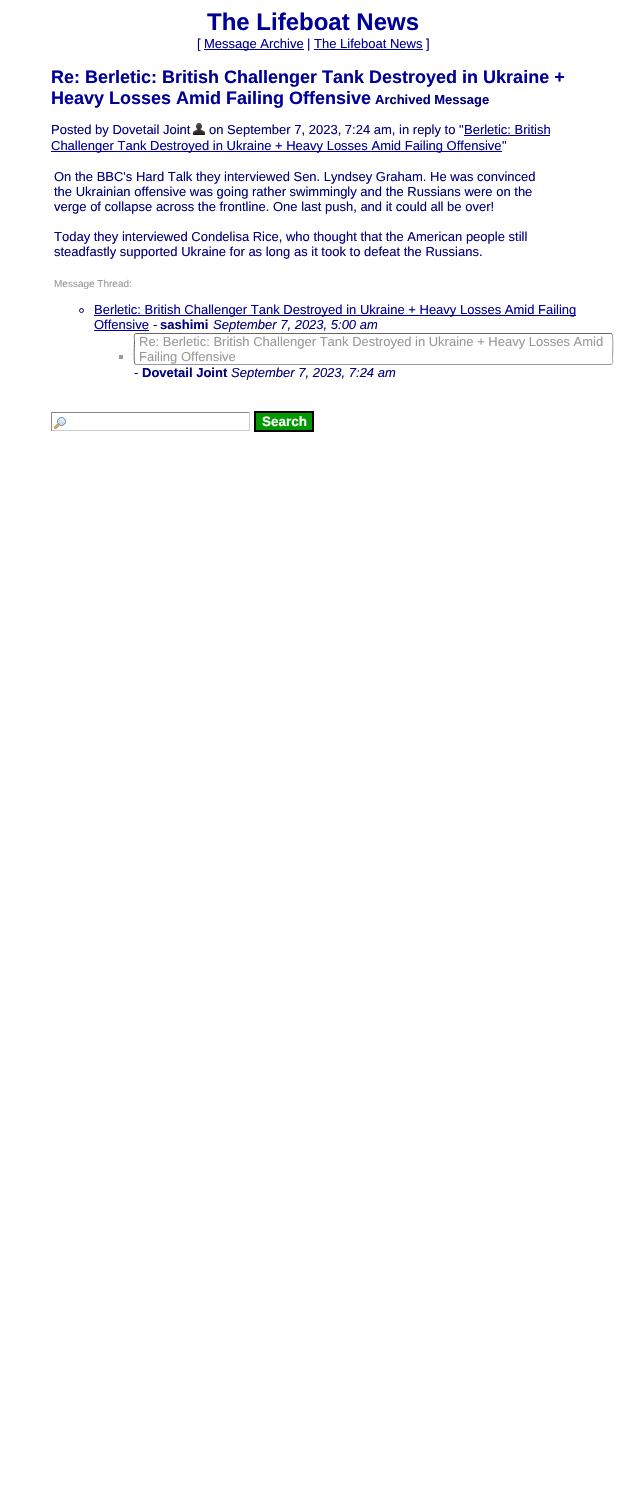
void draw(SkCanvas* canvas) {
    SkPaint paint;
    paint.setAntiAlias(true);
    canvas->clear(0xFFFFFFFF);
    SkFont font1(fontMgr->matchFamilyStyle("Liberation Sans", SkFontStyle::Bold()), 24);
    font1.setSubpixel(true);
    paint.setColor(0xFF000099);
    canvas->drawString("The Lifeboat News", 207, 30, font1, paint);
    SkFont font2(fontMgr->matchFamilyStyle("Liberation Sans", SkFontStyle::Normal()), 13);
    font2.setSubpixel(true);
    paint.setColor(0xFF000080);
    canvas->drawString("[", 197, 48, font2, paint);
    paint.setColor(0xFF000099);
    canvas->drawRect(SkRect::MakeXYWH(204, 49, 100, 1), paint);
    canvas->drawString("Message Archive", 204, 48, font2, paint);
    paint.setColor(0xFF000080);
    canvas->drawString("|", 307, 48, font2, paint);
    paint.setColor(0xFF000099);
    canvas->drawString("The Lifeboat News", 314, 48, font2, paint);
    canvas->drawRect(SkRect::MakeXYWH(314, 49, 109, 1), paint);
    paint.setColor(0xFF000080);
    canvas->drawString("]", 426, 48, font2, paint);
    SkFont font3(fontMgr->matchFamilyStyle("Liberation Sans", SkFontStyle::Bold()), 18);
    font3.setSubpixel(true);
    paint.setColor(0xFF000099);
    canvas->drawString("Re: Berletic: British Challenger Tank Destroyed in Ukraine +", 51, 83, font3, paint);
    canvas->drawString("Heavy Losses Amid Failing Offensive", 51, 104, font3, paint);
    SkFont font4(fontMgr->matchFamilyStyle("Liberation Sans", SkFontStyle::Bold()), 13);
    font4.setSubpixel(true);
    paint.setColor(0xFF000080);
    canvas->drawString("Archived Message", 375, 104, font4, paint);
    canvas->drawString("Posted by Dovetail Joint", 51, 134, font2, paint);
    canvas->drawImageRect(SkImages::DeferredFromEncodedData(SkData::MakeFromFileName("img1.png")), SkRect::MakeXYWH(193, 123, 12, 12), SkSamplingOptions());
    canvas->drawString("on September 7, 2023, 7:24 am, in reply to \"", 209, 134, font2, paint);
    paint.setColor(0xFF000099);
    canvas->drawString("Berletic: British", 464, 134, font2, paint);
    canvas->drawRect(SkRect::MakeXYWH(464, 135, 86, 1), paint);
    canvas->drawRect(SkRect::MakeXYWH(51, 151, 451, 1), paint);
    canvas->drawString("Challenger Tank Destroyed in Ukraine + Heavy Losses Amid Failing Offensive", 51, 150, font2, paint);
    paint.setColor(0xFF000080);
    canvas->drawString("\"", 502, 150, font2, paint);
    canvas->drawString("On the BBC's Hard Talk they interviewed Sen. Lyndsey Graham. He was convinced", 54, 181, font2, paint);
    canvas->drawString("the Ukrainian offensive was going rather swimmingly and the Russians were on the", 54, 196, font2, paint);
    canvas->drawString("verge of collapse across the frontline. One last push, and it could all be over!", 54, 211, font2, paint);
    canvas->drawString("Today they interviewed Condelisa Rice, who thought that the American people still", 54, 241, font2, paint);
    canvas->drawString("steadfastly supported Ukraine for as long as it took to defeat the Russians.", 54, 256, font2, paint);
    SkFont font5(fontMgr->matchFamilyStyle("Liberation Sans", SkFontStyle::Normal()), 10);
    font5.setSubpixel(true);
    paint.setColor(0xFF999999);
    canvas->drawString("Message Thread:", 54, 287, font5, paint);
    paint.setStyle(SkPaint::kStroke_Style);
    paint.setStrokeWidth(1);
    paint.setColor(0xFF000080);
    canvas->drawCircle(81.5f, 310.5f, 2, paint);
    paint.setStyle(SkPaint::kFill_Style);
    paint.setColor(0xFF000099);
    canvas->drawRect(SkRect::MakeXYWH(94, 315, 482, 1), paint);
    canvas->drawString("Berletic: British Challenger Tank Destroyed in Ukraine + Heavy Losses Amid Failing", 94, 314, font2, paint);
    canvas->drawString("Offensive", 94, 329, font2, paint);
    canvas->drawRect(SkRect::MakeXYWH(94, 330, 55, 1), paint);
    paint.setColor(0xFF000080);
    canvas->drawString("-", 153, 329, font2, paint);
    canvas->drawString("sashimi", 160, 329, font4, paint);
    SkFont font6(fontMgr->matchFamilyStyle("Liberation Sans", SkFontStyle::Italic()), 13);
    font6.setSubpixel(true);
    canvas->drawString("September 7, 2023, 5:00 am", 213, 329, font6, paint);
    paint.setColor(0xFF999999);
    canvas->drawRect(SkRect::MakeXYWH(119, 355, 4, 4), paint);
    paint.setStyle(SkPaint::kStroke_Style);
    canvas->drawPath(SkPathBuilder().moveTo(612, 334).cubicTo(613.5f, 335, 612.5f, 355, 612.5f, 358.5f).cubicTo(612.5f, 358.5f, 613.5f, 364.5f, 611, 364.5f).lineTo(136, 364.5f).lineTo(135, 364).detach(), paint);
    paint.setColor(0xFF666666);
    canvas->drawPath(SkPathBuilder().moveTo(135, 364).cubicTo(133.5f, 363, 134.5f, 343, 134.5f, 339.5f).cubicTo(134.5f, 339.5f, 133.5f, 333.5f, 136, 333.5f).lineTo(611, 333.5f).lineTo(612, 334).detach(), paint);
    paint.setStyle(SkPaint::kFill_Style);
    paint.setColor(0xFF999999);
    canvas->drawString("Re: Berletic: British Challenger Tank Destroyed in Ukraine + Heavy Losses Amid", 139, 346, font2, paint);
    canvas->drawString("Failing Offensive", 139, 361, font2, paint);
    paint.setColor(0xFF000080);
    canvas->drawString("-", 134, 377, font2, paint);
    canvas->drawString("Dovetail Joint", 142, 377, font4, paint);
    canvas->drawString("September 7, 2023, 7:24 am", 231, 377, font6, paint);
    canvas->drawImageRect(SkImages::DeferredFromEncodedData(SkData::MakeFromFileName("img2.png")), SkRect::MakeXYWH(54, 417, 12, 12), SkSamplingOptions());
    paint.setColor(0xFF888888);
    canvas->drawRect(SkRect::MakeXYWH(51, 412, 199, 1), paint);
    paint.setColor(0xFFCCCCCC);
    canvas->drawRect(SkRect::MakeXYWH(249, 412, 1, 19), paint);
    canvas->drawRect(SkRect::MakeXYWH(51, 430, 199, 1), paint);
    paint.setColor(0xFF888888);
    canvas->drawRect(SkRect::MakeXYWH(51, 412, 1, 19), paint);
    paint.setColor(0xFF009900);
    canvas->drawRect(SkRect::MakeXYWH(255, 412, 58, 19), paint);
    paint.setStyle(SkPaint::kStroke_Style);
    paint.setStrokeWidth(2);
    paint.setColor(0xFF000000);
    canvas->drawRect(SkRect::MakeXYWH(255, 412, 58, 19), paint);
    SkFont font7(fontMgr->matchFamilyStyle("Liberation Sans", SkFontStyle::Bold()), 13.5f);
    font7.setSubpixel(true);
    paint.setStyle(SkPaint::kFill_Style);
    paint.setColor(0xFFFFFFFF);
    canvas->drawString("Search", 262, 426, font7, paint);
}
